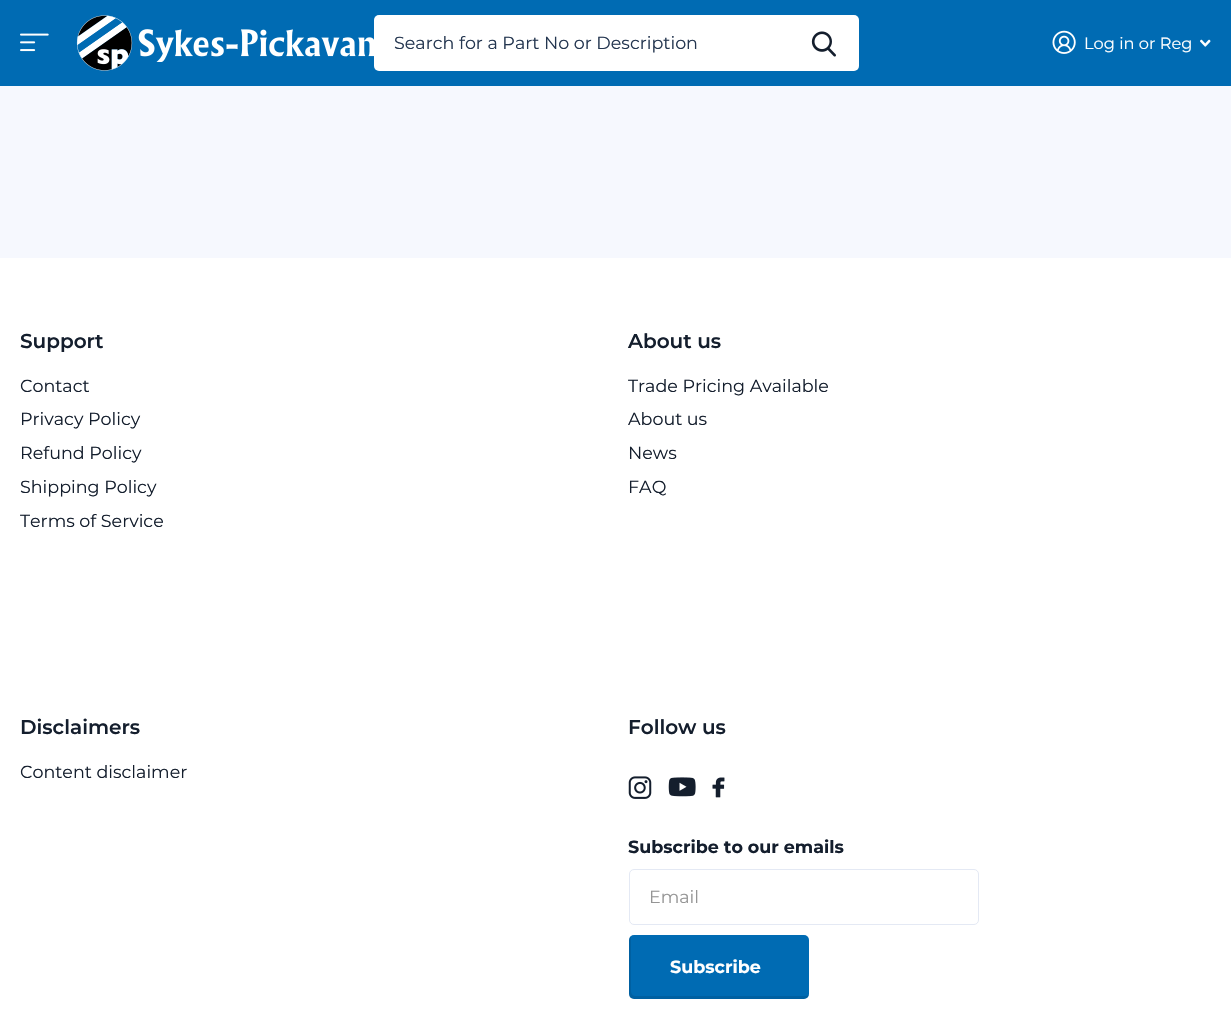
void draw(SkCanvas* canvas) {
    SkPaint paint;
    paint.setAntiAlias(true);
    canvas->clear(0xFFF6F8FE);
    paint.setColor(0xFF006BB3);
    canvas->drawRect(SkRect::MakeXYWH(0, 0, 1231, 86), paint);
    canvas->drawImageRect(SkImages::DeferredFromEncodedData(SkData::MakeFromFileName("img1.png")), SkRect::MakeXYWH(20, 33, 29, 19), SkSamplingOptions());
    canvas->drawImageRect(SkImages::DeferredFromEncodedData(SkData::MakeFromFileName("img2.png")), SkRect::MakeXYWH(76, 15, 298, 56), SkSamplingOptions());
    paint.setColor(0xFFFFFFFF);
    canvas->drawRoundRect(SkRect::MakeXYWH(374, 15, 485, 56), 5, 5, paint);
    SkFont font1(fontMgr->matchFamilyStyle("Montserrat", SkFontStyle::Normal()), 17.5f);
    font1.setSubpixel(true);
    paint.setColor(0xFF243650);
    canvas->drawString("Search for a Part No or Description", 394, 49, font1, paint);
    canvas->drawImageRect(SkImages::DeferredFromEncodedData(SkData::MakeFromFileName("img3.png")), SkRect::MakeXYWH(811, 31, 25, 26), SkSamplingOptions());
    canvas->drawImageRect(SkImages::DeferredFromEncodedData(SkData::MakeFromFileName("img4.png")), SkRect::MakeXYWH(1052, 30, 24, 24), SkSamplingOptions());
    SkFont font2(fontMgr->matchFamilyStyle("Montserrat", SkFontStyle::Normal()), 16.25f);
    font2.setSubpixel(true);
    paint.setColor(0xFFFFFFFF);
    canvas->drawString("Log in or Reg", 1084, 49, font2, paint);
    canvas->drawImageRect(SkImages::DeferredFromEncodedData(SkData::MakeFromFileName("img5.png")), SkRect::MakeXYWH(1200, 39, 11, 8), SkSamplingOptions());
    canvas->drawRect(SkRect::MakeXYWH(0, 258, 1231, 755), paint);
    SkFont font3(fontMgr->matchFamilyStyle("Montserrat", SkFontStyle(600, SkFontStyle::kNormal_Width, SkFontStyle::kUpright_Slant)), 20);
    font3.setSubpixel(true);
    paint.setColor(0xFF141E2D);
    canvas->drawString("Support", 20, 348, font3, paint);
    canvas->drawString("Contact", 20, 392, font1, paint);
    canvas->drawString("Privacy Policy", 20, 425, font1, paint);
    canvas->drawString("Refund Policy", 20, 459, font1, paint);
    canvas->drawString("Shipping Policy", 20, 493, font1, paint);
    canvas->drawString("Terms of Service", 20, 527, font1, paint);
    canvas->drawString("About us", 628, 348, font3, paint);
    canvas->drawString("Trade Pricing Available", 628, 392, font1, paint);
    canvas->drawString("About us", 628, 425, font1, paint);
    canvas->drawString("News", 628, 459, font1, paint);
    canvas->drawString("FAQ", 628, 493, font1, paint);
    canvas->drawString("Disclaimers", 20, 734, font3, paint);
    canvas->drawString("Content disclaimer", 20, 778, font1, paint);
    canvas->drawString("Follow us", 628, 734, font3, paint);
    canvas->drawImageRect(SkImages::DeferredFromEncodedData(SkData::MakeFromFileName("img6.png")), SkRect::MakeXYWH(628, 776, 24, 23), SkSamplingOptions());
    canvas->drawImageRect(SkImages::DeferredFromEncodedData(SkData::MakeFromFileName("img7.png")), SkRect::MakeXYWH(668, 777, 28, 20), SkSamplingOptions());
    canvas->drawImageRect(SkImages::DeferredFromEncodedData(SkData::MakeFromFileName("img8.png")), SkRect::MakeXYWH(712, 777, 13, 21), SkSamplingOptions());
    SkFont font4(fontMgr->matchFamilyStyle("Montserrat", SkFontStyle::Bold()), 17.5f);
    font4.setSubpixel(true);
    canvas->drawString("Subscribe to our emails", 628, 853, font4, paint);
    paint.setStyle(SkPaint::kStroke_Style);
    paint.setStrokeWidth(1);
    paint.setColor(0xFFE4E9F4);
    canvas->drawRoundRect(SkRect::MakeXYWH(629.5f, 869.5f, 349, 55), 4.5f, 4.5f, paint);
    paint.setStyle(SkPaint::kFill_Style);
    paint.setColor(0xFF959595);
    canvas->drawString("Email", 649, 903, font1, paint);
    paint.setColor(0xFF006BB3);
    canvas->drawRoundRect(SkRect::MakeXYWH(629, 935, 180, 64), 5, 5, paint);
    paint.setColor(0x1A000000);
    canvas->drawPath(SkPathBuilder().moveTo(631, 936).cubicTo(630, 937, 629, 938, 629, 940).lineTo(629, 994).cubicTo(629, 997, 631, 999, 634, 999).lineTo(804, 999).cubicTo(806, 999, 808, 997, 809, 995).lineTo(806, 996).lineTo(636, 996).cubicTo(633, 996, 631, 994, 631, 991).lineTo(631, 938).close().detach(), paint);
    paint.setColor(0xFFFFFFFF);
    canvas->drawString("Subscribe", 670, 973, font4, paint);
}
